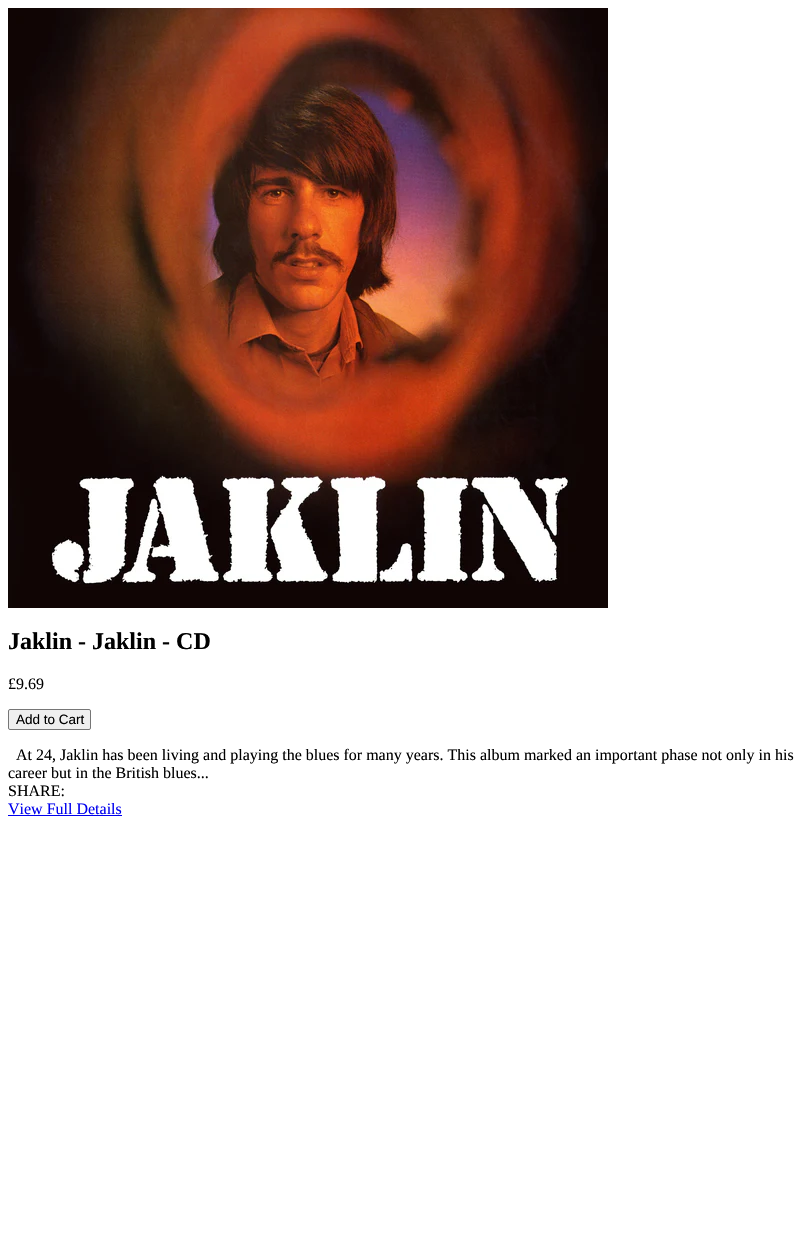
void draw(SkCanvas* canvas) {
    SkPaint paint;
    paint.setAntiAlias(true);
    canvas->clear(0xFFFFFFFF);
    canvas->drawImageRect(SkImages::DeferredFromEncodedData(SkData::MakeFromFileName("img1.png")), SkRect::MakeXYWH(8, 8, 600, 600), SkSamplingOptions());
    SkFont font1(fontMgr->matchFamilyStyle("Liberation Serif", SkFontStyle::Bold()), 24);
    font1.setSubpixel(true);
    paint.setColor(0xFF000000);
    canvas->drawString("Jaklin - Jaklin - CD", 8, 649, font1, paint);
    SkFont font2(fontMgr->matchFamilyStyle("Liberation Serif", SkFontStyle::Normal()), 16);
    font2.setSubpixel(true);
    canvas->drawString("£9.69", 8, 689, font2, paint);
    paint.setColor(0xFFEFEFEF);
    canvas->drawRoundRect(SkRect::MakeXYWH(8.5f, 709.5f, 82, 20), 1.5f, 1.5f, paint);
    paint.setStyle(SkPaint::kStroke_Style);
    paint.setStrokeWidth(1);
    paint.setColor(0xFF767676);
    canvas->drawRoundRect(SkRect::MakeXYWH(8.5f, 709.5f, 82, 20), 1.5f, 1.5f, paint);
    SkFont font3(fontMgr->matchFamilyStyle("Liberation Sans", SkFontStyle::Normal()), 13.5f);
    font3.setSubpixel(true);
    paint.setStyle(SkPaint::kFill_Style);
    paint.setColor(0xFF000000);
    canvas->drawString("Add to Cart", 16, 724, font3, paint);
    canvas->drawString("At 24, Jaklin has been living and playing the blues for many years. This album marked an important phase not only in his", 16, 760, font2, paint);
    canvas->drawString("career but in the British blues...", 8, 778, font2, paint);
    canvas->drawString("SHARE:", 8, 796, font2, paint);
    paint.setColor(0xFF0000EE);
    canvas->drawString("View Full Details", 8, 814, font2, paint);
    canvas->drawRect(SkRect::MakeXYWH(8, 815, 114, 1), paint);
}
